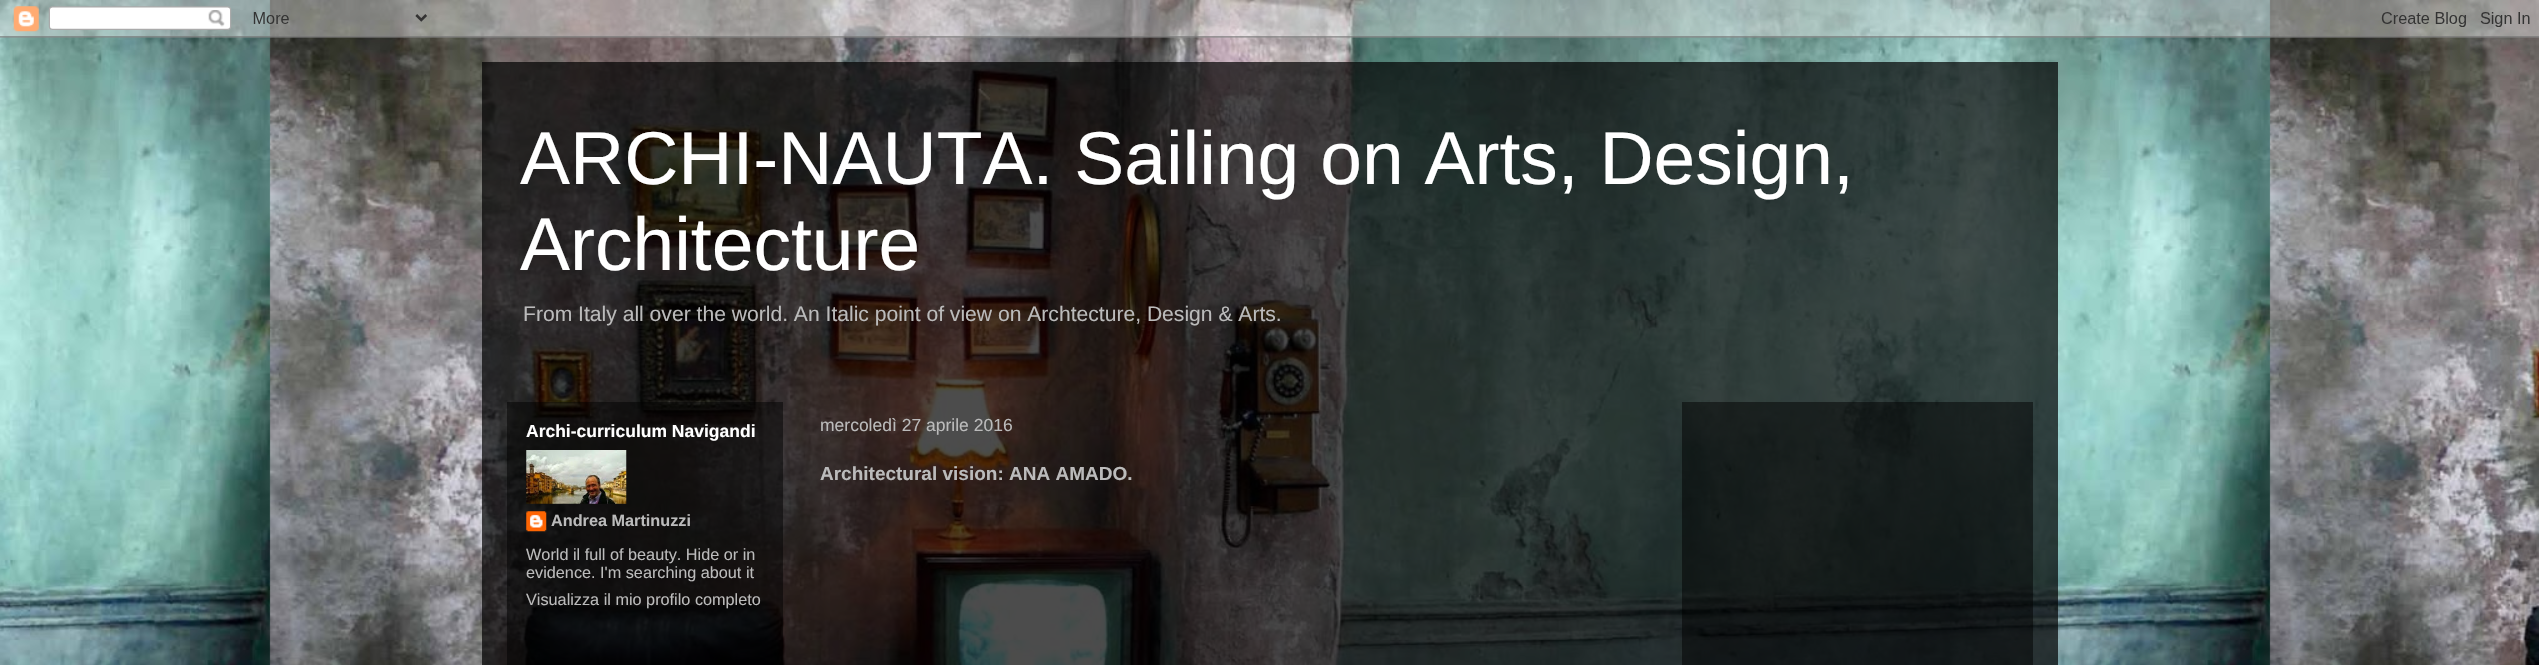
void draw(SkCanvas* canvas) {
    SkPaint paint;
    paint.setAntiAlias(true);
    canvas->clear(0xFFFFFFFF);
    canvas->drawImageRect(SkImages::DeferredFromEncodedData(SkData::MakeFromFileName("img1.png")), SkRect::MakeXYWH(0, 0, 2539, 665), SkSamplingOptions());
    canvas->drawImageRect(SkImages::DeferredFromEncodedData(SkData::MakeFromFileName("img2.png")), SkRect::MakeXYWH(0, 0, 2539, 38), SkSamplingOptions());
    paint.setColor(0xB3000000);
    canvas->drawRect(SkRect::MakeXYWH(482, 62, 1576, 603), paint);
    SkFont font1(fontMgr->matchFamilyStyle("Liberation Sans", SkFontStyle::Normal()), 75);
    font1.setSubpixel(true);
    paint.setColor(0xFFFFFFFF);
    canvas->drawString("ARCHI-NAUTA. Sailing on Arts, Design,", 520, 184, font1, paint);
    canvas->drawString("Architecture", 520, 270, font1, paint);
    SkFont font2(fontMgr->matchFamilyStyle("Liberation Sans", SkFontStyle::Normal()), 21.1f);
    font2.setSubpixel(true);
    paint.setColor(0xFFBBBBBB);
    canvas->drawString("From Italy all over the world. An Italic point of view on Archtecture, Design & Arts.", 523, 321, font2, paint);
    paint.setColor(0x80000000);
    canvas->drawRect(SkRect::MakeXYWH(507, 402, 276, 263), paint);
    canvas->drawRect(SkRect::MakeXYWH(1682, 402, 351, 263), paint);
    SkFont font3(fontMgr->matchFamilyStyle("Liberation Sans", SkFontStyle::Bold()), 17.5f);
    font3.setSubpixel(true);
    paint.setColor(0xFFFFFFFF);
    canvas->drawString("Archi-curriculum Navigandi", 526, 437, font3, paint);
    canvas->drawImageRect(SkImages::DeferredFromEncodedData(SkData::MakeFromFileName("img3.png")), SkRect::MakeXYWH(526, 450, 101, 54), SkSamplingOptions());
    canvas->drawImageRect(SkImages::DeferredFromEncodedData(SkData::MakeFromFileName("img4.png")), SkRect::MakeXYWH(526, 511, 21, 21), SkSamplingOptions());
    SkFont font4(fontMgr->matchFamilyStyle("Liberation Sans", SkFontStyle::Bold()), 16.25f);
    font4.setSubpixel(true);
    paint.setColor(0xFFBBBBBB);
    canvas->drawString("Andrea Martinuzzi", 551, 526, font4, paint);
    SkFont font5(fontMgr->matchFamilyStyle("Liberation Sans", SkFontStyle::Normal()), 16.25f);
    font5.setSubpixel(true);
    canvas->drawString("World il full of beauty. Hide or in", 526, 560, font5, paint);
    canvas->drawString("evidence. I'm searching about it", 526, 578, font5, paint);
    canvas->drawString("Visualizza il mio profilo completo", 526, 605, font5, paint);
    SkFont font6(fontMgr->matchFamilyStyle("Liberation Sans", SkFontStyle::Normal()), 17.5f);
    font6.setSubpixel(true);
    canvas->drawString("mercoledì 27 aprile 2016", 820, 431, font6, paint);
    SkFont font7(fontMgr->matchFamilyStyle("Liberation Sans", SkFontStyle::Bold()), 19);
    font7.setSubpixel(true);
    canvas->drawString("Architectural vision: ANA AMADO.", 820, 480, font7, paint);
}
